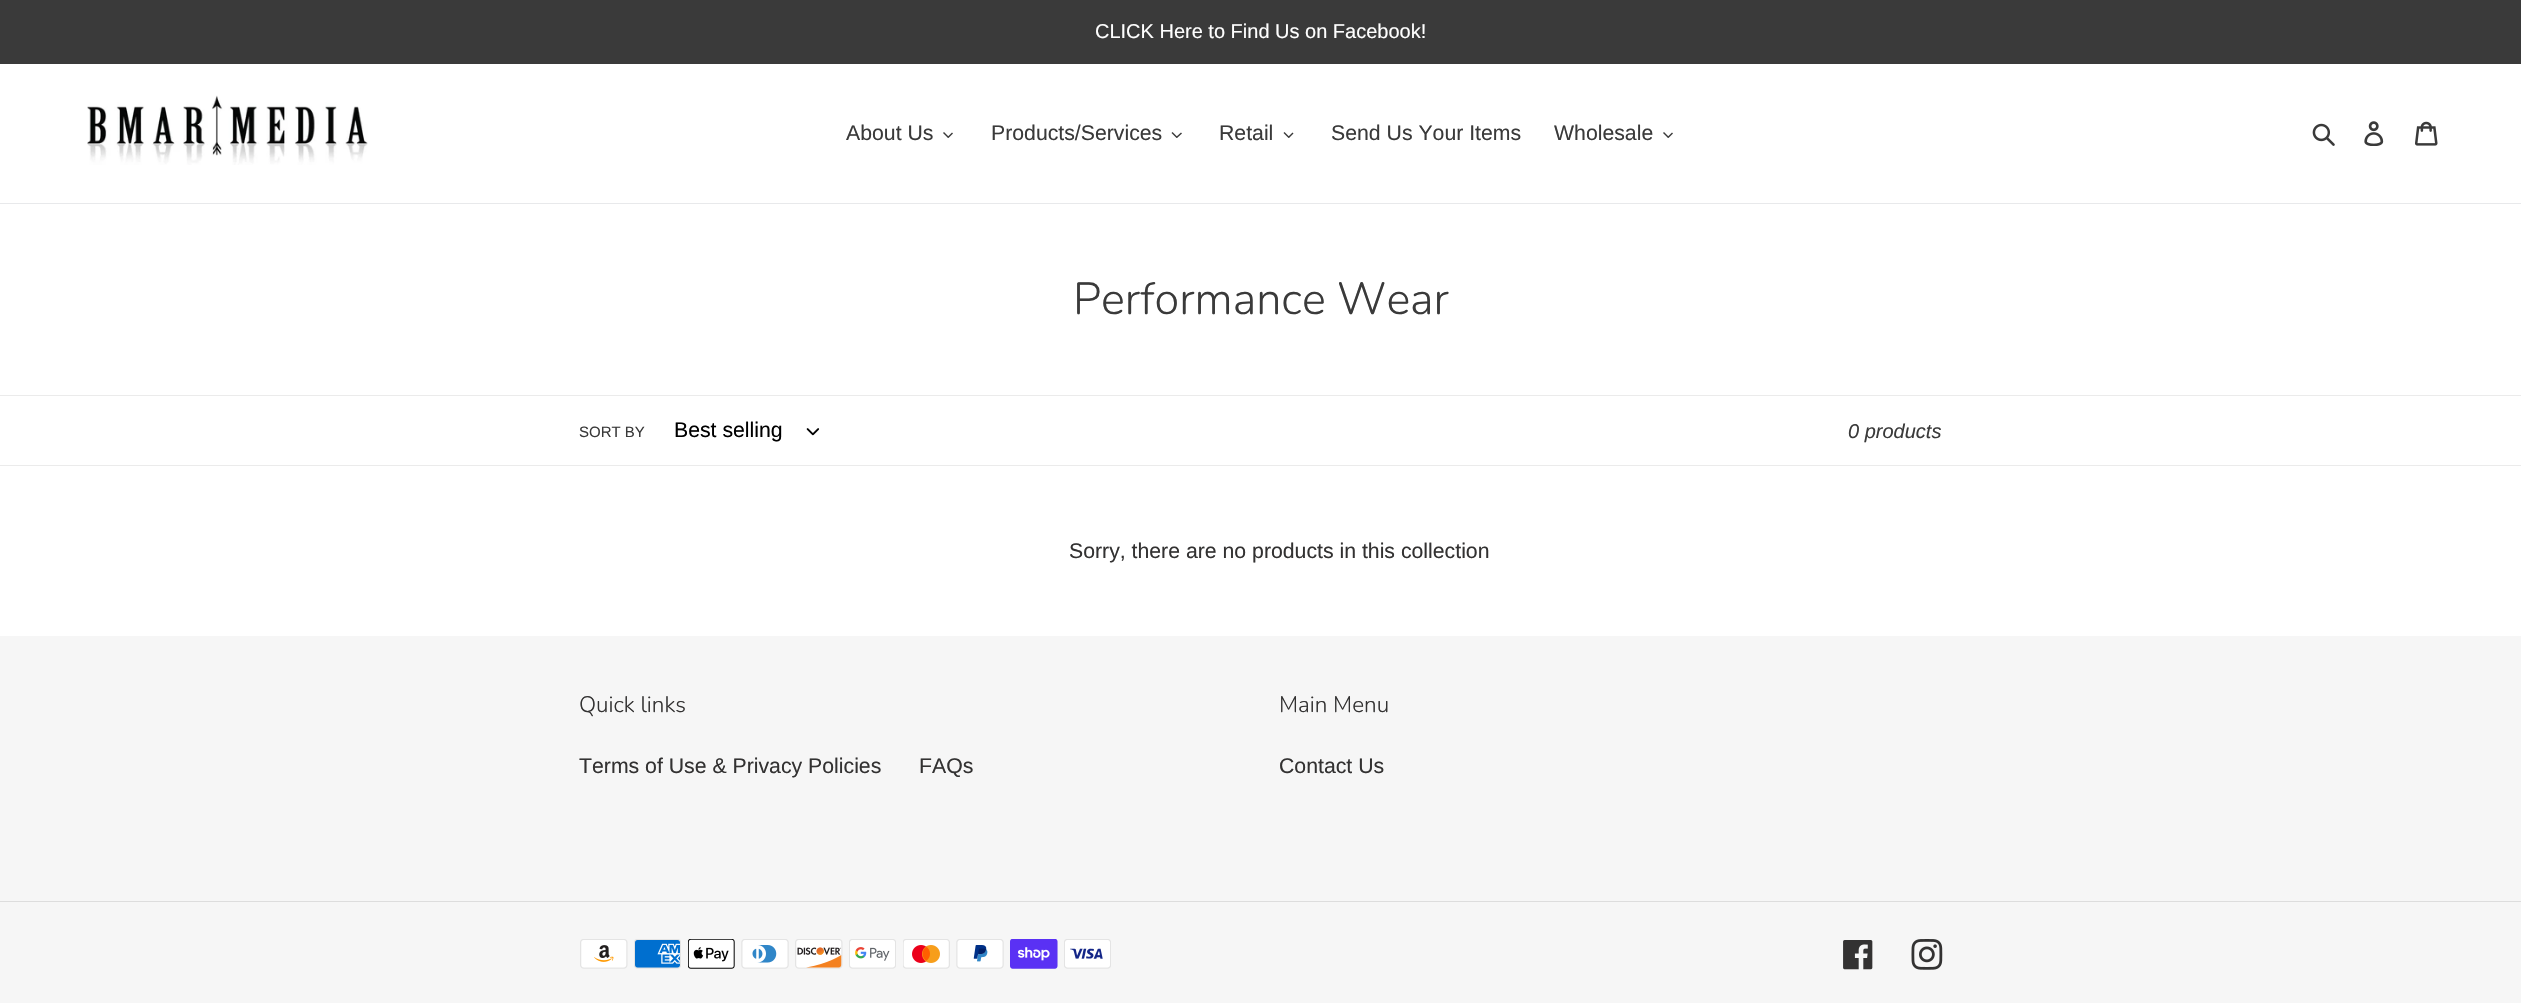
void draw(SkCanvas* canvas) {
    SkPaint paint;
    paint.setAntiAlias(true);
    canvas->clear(0xFFFFFFFF);
    paint.setColor(0xFF3A3A3A);
    canvas->drawRect(SkRect::MakeXYWH(0, 0, 2521, 64), paint);
    SkFont font1(fontMgr->matchFamilyStyle("Liberation Sans", SkFontStyle::Normal()), 20);
    font1.setSubpixel(true);
    paint.setColor(0xFFFFFFFF);
    canvas->drawString("CLICK Here to Find Us on Facebook!", 1095, 38, font1, paint);
    paint.setColor(0xFFE8E9EB);
    canvas->drawRect(SkRect::MakeXYWH(0, 203, 2521, 1), paint);
    canvas->drawImageRect(SkImages::DeferredFromEncodedData(SkData::MakeFromFileName("img1.png")), SkRect::MakeXYWH(87, 95, 281, 70), SkSamplingOptions());
    SkFont font2(fontMgr->matchFamilyStyle("Liberation Sans", SkFontStyle::Normal()), 21.25f);
    font2.setSubpixel(true);
    paint.setColor(0xFF3A3A3A);
    canvas->drawString("About Us", 846, 140, font2, paint);
    canvas->drawPath(SkPathBuilder().moveTo(952, 132.5f).lineTo(953, 133.5f).lineTo(948.5f, 138).lineTo(947.5f, 137).close().detach(), paint);
    canvas->drawPath(SkPathBuilder().moveTo(944, 132).lineTo(949, 137).lineTo(948, 138).lineTo(943, 133).close().detach(), paint);
    canvas->drawString("Products/Services", 991, 140, font2, paint);
    canvas->drawPath(SkPathBuilder().moveTo(1181, 132.5f).lineTo(1182, 133.5f).lineTo(1177, 138).lineTo(1176, 137).close().detach(), paint);
    canvas->drawPath(SkPathBuilder().moveTo(1172.5f, 132).lineTo(1177.5f, 137).lineTo(1176.5f, 138).lineTo(1171.5f, 133).close().detach(), paint);
    canvas->drawString("Retail", 1219, 140, font2, paint);
    canvas->drawPath(SkPathBuilder().moveTo(1292.5f, 132.5f).lineTo(1293.5f, 133.5f).lineTo(1289, 138).lineTo(1288, 137).close().detach(), paint);
    canvas->drawPath(SkPathBuilder().moveTo(1284.5f, 132).lineTo(1289.5f, 137).lineTo(1288.5f, 138).lineTo(1283.5f, 133).close().detach(), paint);
    canvas->drawString("Send Us Your Items", 1331, 140, font2, paint);
    canvas->drawString("Wholesale", 1554, 140, font2, paint);
    canvas->drawPath(SkPathBuilder().moveTo(1672, 132.5f).lineTo(1673, 133.5f).lineTo(1668.5f, 138).lineTo(1667.5f, 137).close().detach(), paint);
    canvas->drawPath(SkPathBuilder().moveTo(1664, 132).lineTo(1669, 137).lineTo(1668, 138).lineTo(1663, 133).close().detach(), paint);
    canvas->drawImageRect(SkImages::DeferredFromEncodedData(SkData::MakeFromFileName("img2.png")), SkRect::MakeXYWH(2312, 123, 23, 23), SkSamplingOptions());
    canvas->drawImageRect(SkImages::DeferredFromEncodedData(SkData::MakeFromFileName("img3.png")), SkRect::MakeXYWH(2364, 121, 20, 25), SkSamplingOptions());
    canvas->drawImageRect(SkImages::DeferredFromEncodedData(SkData::MakeFromFileName("img4.png")), SkRect::MakeXYWH(2415, 121, 23, 25), SkSamplingOptions());
    SkFont font3(fontMgr->matchFamilyStyle("Nunito", SkFontStyle(300, SkFontStyle::kNormal_Width, SkFontStyle::kUpright_Slant)), 45);
    font3.setSubpixel(true);
    canvas->drawString("Performance Wear", 1073, 314, font3, paint);
    paint.setColor(0xFFEBEBEB);
    canvas->drawRect(SkRect::MakeXYWH(0, 395, 2521, 1), paint);
    canvas->drawRect(SkRect::MakeXYWH(0, 465, 2521, 1), paint);
    SkFont font4(fontMgr->matchFamilyStyle("Liberation Sans", SkFontStyle::Normal()), 15);
    font4.setSubpixel(true);
    paint.setColor(0xFF3A3A3A);
    canvas->drawString("SORT BY", 579, 437, font4, paint);
    paint.setColor(0xFF000000);
    canvas->drawString("Best selling", 674, 437, font2, paint);
    canvas->drawImageRect(SkImages::DeferredFromEncodedData(SkData::MakeFromFileName("img5.png")), SkRect::MakeXYWH(806, 428, 14, 8), SkSamplingOptions());
    SkFont font5(fontMgr->matchFamilyStyle("Liberation Sans", SkFontStyle::Italic()), 20);
    font5.setSubpixel(true);
    paint.setColor(0xFF3A3A3A);
    canvas->drawString("0 products", 1848, 438, font5, paint);
    paint.setColor(0xFF333232);
    canvas->drawString("Sorry, there are no products in this collection", 1069, 558, font2, paint);
    paint.setColor(0xFFF6F6F6);
    canvas->drawRect(SkRect::MakeXYWH(0, 636, 2521, 367), paint);
    SkFont font6(fontMgr->matchFamilyStyle("Nunito", SkFontStyle(300, SkFontStyle::kNormal_Width, SkFontStyle::kUpright_Slant)), 22.5f);
    font6.setSubpixel(true);
    paint.setColor(0xFF333232);
    canvas->drawString("Quick links", 579, 712, font6, paint);
    canvas->drawString("Terms of Use & Privacy Policies", 579, 773, font2, paint);
    canvas->drawString("FAQs", 919, 773, font2, paint);
    canvas->drawString("Main Menu", 1279, 712, font6, paint);
    canvas->drawString("Contact Us", 1279, 773, font2, paint);
    paint.setColor(0xFFDDDDDD);
    canvas->drawRect(SkRect::MakeXYWH(0, 901, 2521, 1), paint);
    canvas->drawImageRect(SkImages::DeferredFromEncodedData(SkData::MakeFromFileName("img6.png")), SkRect::MakeXYWH(580, 939, 48, 30), SkSamplingOptions());
    canvas->drawImageRect(SkImages::DeferredFromEncodedData(SkData::MakeFromFileName("img7.png")), SkRect::MakeXYWH(634, 939, 47, 30), SkSamplingOptions());
    canvas->drawImageRect(SkImages::DeferredFromEncodedData(SkData::MakeFromFileName("img8.png")), SkRect::MakeXYWH(688, 939, 47, 30), SkSamplingOptions());
    canvas->drawImageRect(SkImages::DeferredFromEncodedData(SkData::MakeFromFileName("img9.png")), SkRect::MakeXYWH(741, 939, 48, 30), SkSamplingOptions());
    canvas->drawImageRect(SkImages::DeferredFromEncodedData(SkData::MakeFromFileName("img10.png")), SkRect::MakeXYWH(795, 939, 48, 30), SkSamplingOptions());
    canvas->drawImageRect(SkImages::DeferredFromEncodedData(SkData::MakeFromFileName("img11.png")), SkRect::MakeXYWH(849, 939, 47, 30), SkSamplingOptions());
    canvas->drawImageRect(SkImages::DeferredFromEncodedData(SkData::MakeFromFileName("img12.png")), SkRect::MakeXYWH(903, 939, 47, 30), SkSamplingOptions());
    canvas->drawImageRect(SkImages::DeferredFromEncodedData(SkData::MakeFromFileName("img13.png")), SkRect::MakeXYWH(956, 939, 48, 30), SkSamplingOptions());
    canvas->drawImageRect(SkImages::DeferredFromEncodedData(SkData::MakeFromFileName("img14.png")), SkRect::MakeXYWH(1010, 939, 48, 30), SkSamplingOptions());
    canvas->drawImageRect(SkImages::DeferredFromEncodedData(SkData::MakeFromFileName("img15.png")), SkRect::MakeXYWH(1064, 939, 47, 30), SkSamplingOptions());
    canvas->drawImageRect(SkImages::DeferredFromEncodedData(SkData::MakeFromFileName("img16.png")), SkRect::MakeXYWH(1843, 940, 30, 30), SkSamplingOptions());
    canvas->drawImageRect(SkImages::DeferredFromEncodedData(SkData::MakeFromFileName("img17.png")), SkRect::MakeXYWH(1911, 939, 32, 31), SkSamplingOptions());
}
